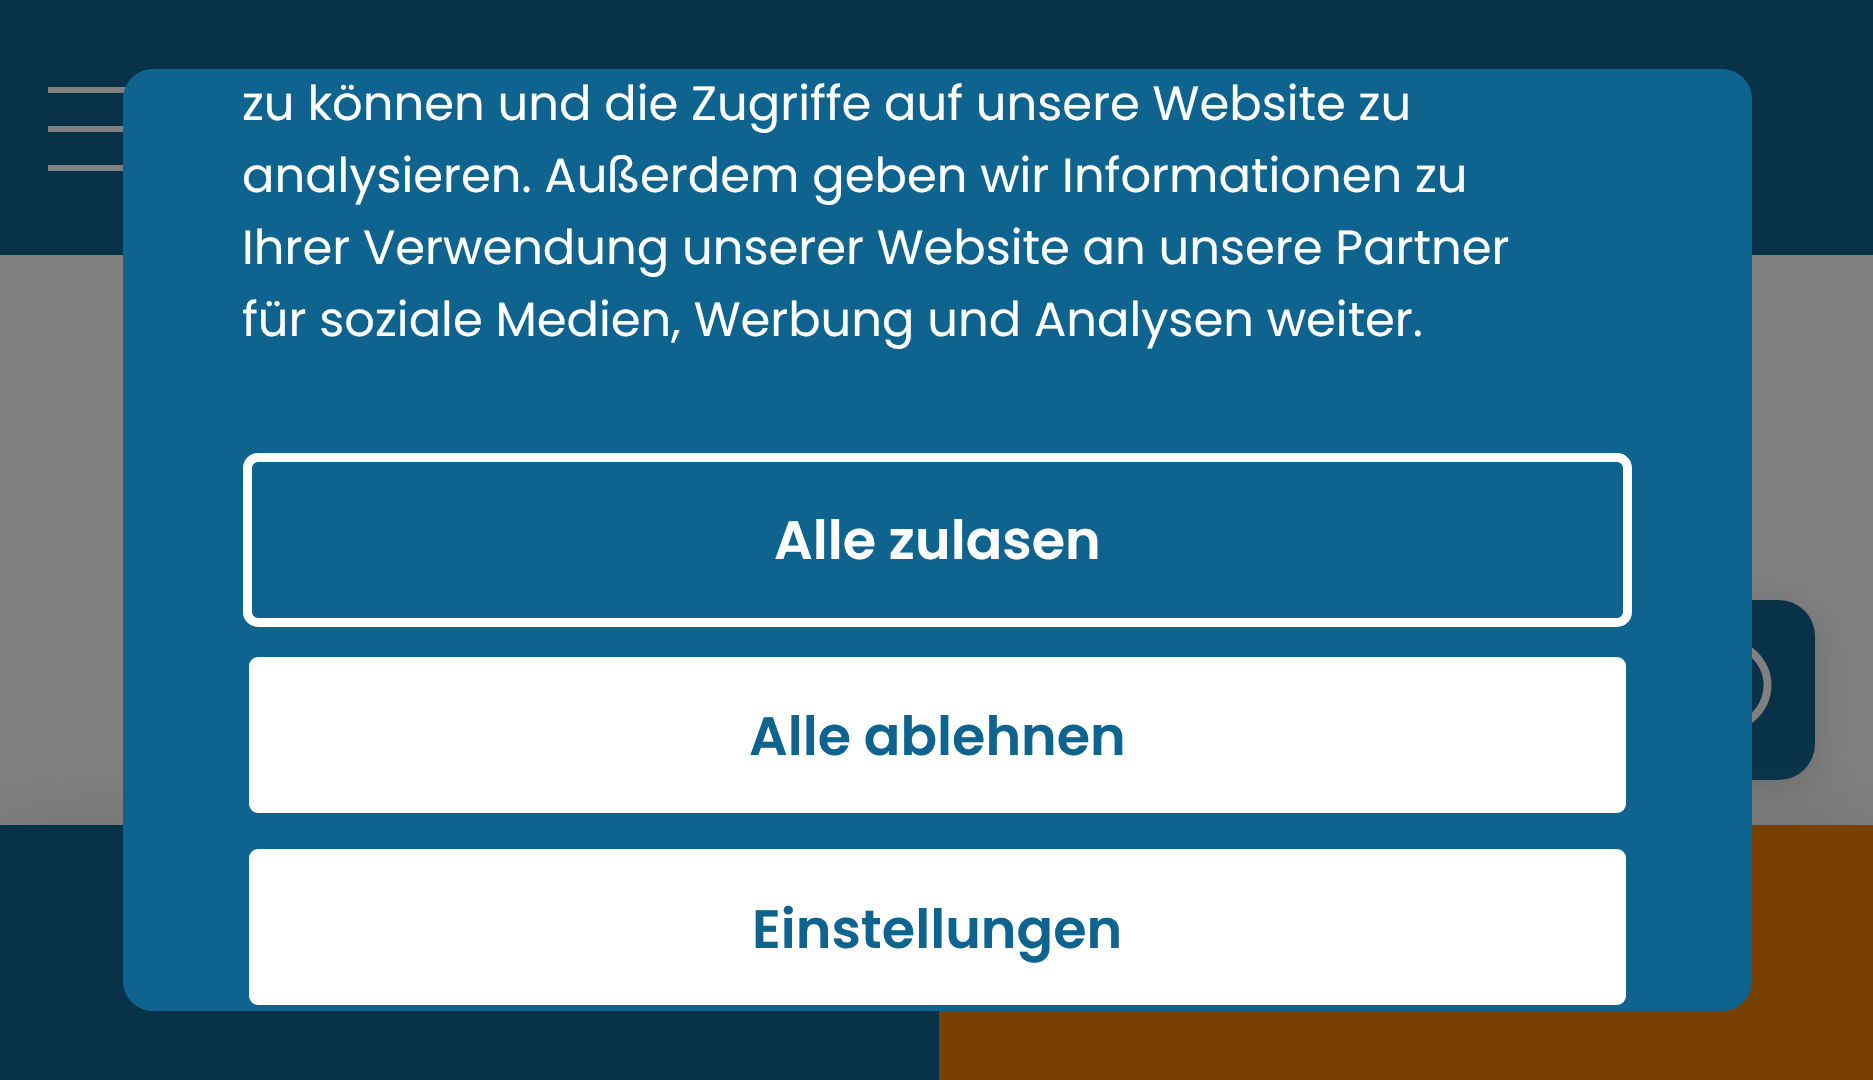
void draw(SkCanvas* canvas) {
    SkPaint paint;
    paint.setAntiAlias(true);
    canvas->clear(0xFF808080);
    paint.setColor(0xFF073248);
    canvas->drawRect(SkRect::MakeXYWH(0, 0, 1873, 255), paint);
    paint.setStyle(SkPaint::kStroke_Style);
    paint.setStrokeWidth(6);
    paint.setColor(0xFF808080);
    canvas->drawPath(SkPathBuilder().moveTo(48, 90).lineTo(177, 90).moveTo(48, 129).lineTo(177, 129).moveTo(48, 168).lineTo(177, 168).detach(), paint);
    paint.setStyle(SkPaint::kFill_Style);
    paint.setColor(0x26000000);
    paint.setMaskFilter(SkMaskFilter::MakeBlur(kNormal_SkBlurStyle, 18));
    canvas->drawRoundRect(SkRect::MakeXYWH(1635, 609, 180, 180), 36, 36, paint);
    paint.setMaskFilter(nullptr);
    paint.setColor(0xFF073248);
    canvas->drawRoundRect(SkRect::MakeXYWH(1635, 600, 180, 180), 36, 36, paint);
    canvas->drawImageRect(SkImages::DeferredFromEncodedData(SkData::MakeFromFileName("img1.png")), SkRect::MakeXYWH(1752, 647, 20, 76), SkSamplingOptions());
    paint.setColor(0xFF5B5B5B);
    paint.setMaskFilter(SkMaskFilter::MakeBlur(kNormal_SkBlurStyle, 54));
    canvas->drawRect(SkRect::MakeXYWH(0, 864, 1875, 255), paint);
    paint.setMaskFilter(nullptr);
    paint.setColor(0xFF073248);
    canvas->drawRect(SkRect::MakeXYWH(0, 825, 939, 255), paint);
    paint.setColor(0xFF784001);
    canvas->drawRect(SkRect::MakeXYWH(939, 825, 934, 255), paint);
    paint.setColor(0xFF0E648F);
    canvas->drawRoundRect(SkRect::MakeXYWH(123, 69, 1629, 942), 30, 30, paint);
    SkFont font1(fontMgr->matchFamilyStyle("Poppins", SkFontStyle::Normal()), 48);
    font1.setSubpixel(true);
    paint.setColor(0xFFFFFFFF);
    canvas->drawString("zu können und die Zugriffe auf unsere Website zu", 242, 120, font1, paint);
    canvas->drawString("analysieren. Außerdem geben wir Informationen zu", 242, 192, font1, paint);
    canvas->drawString("Ihrer Verwendung unserer Website an unsere Partner", 242, 264, font1, paint);
    canvas->drawString("für soziale Medien, Werbung und Analysen weiter.", 242, 336, font1, paint);
    paint.setStyle(SkPaint::kStroke_Style);
    paint.setStrokeWidth(9);
    canvas->drawRoundRect(SkRect::MakeXYWH(247.5f, 457.5f, 1380, 165), 10.5f, 10.5f, paint);
    SkFont font2(fontMgr->matchFamilyStyle("Poppins", SkFontStyle(600, SkFontStyle::kNormal_Width, SkFontStyle::kUpright_Slant)), 54);
    font2.setSubpixel(true);
    paint.setStyle(SkPaint::kFill_Style);
    canvas->drawString("Alle zulasen", 774, 559, font2, paint);
    canvas->drawRoundRect(SkRect::MakeXYWH(246, 654, 1383, 162), 12, 12, paint);
    paint.setStyle(SkPaint::kStroke_Style);
    paint.setStrokeWidth(6);
    paint.setColor(0xFF0E648F);
    canvas->drawRoundRect(SkRect::MakeXYWH(246, 654, 1383, 162), 12, 12, paint);
    paint.setStyle(SkPaint::kFill_Style);
    canvas->drawString("Alle ablehnen", 749, 755, font2, paint);
    paint.setColor(0xFFFFFFFF);
    canvas->drawRoundRect(SkRect::MakeXYWH(246, 846, 1383, 162), 12, 12, paint);
    paint.setStyle(SkPaint::kStroke_Style);
    paint.setColor(0xFF0E648F);
    canvas->drawRoundRect(SkRect::MakeXYWH(246, 846, 1383, 162), 12, 12, paint);
    paint.setStyle(SkPaint::kFill_Style);
    canvas->drawString("Einstellungen", 752, 948, font2, paint);
}
